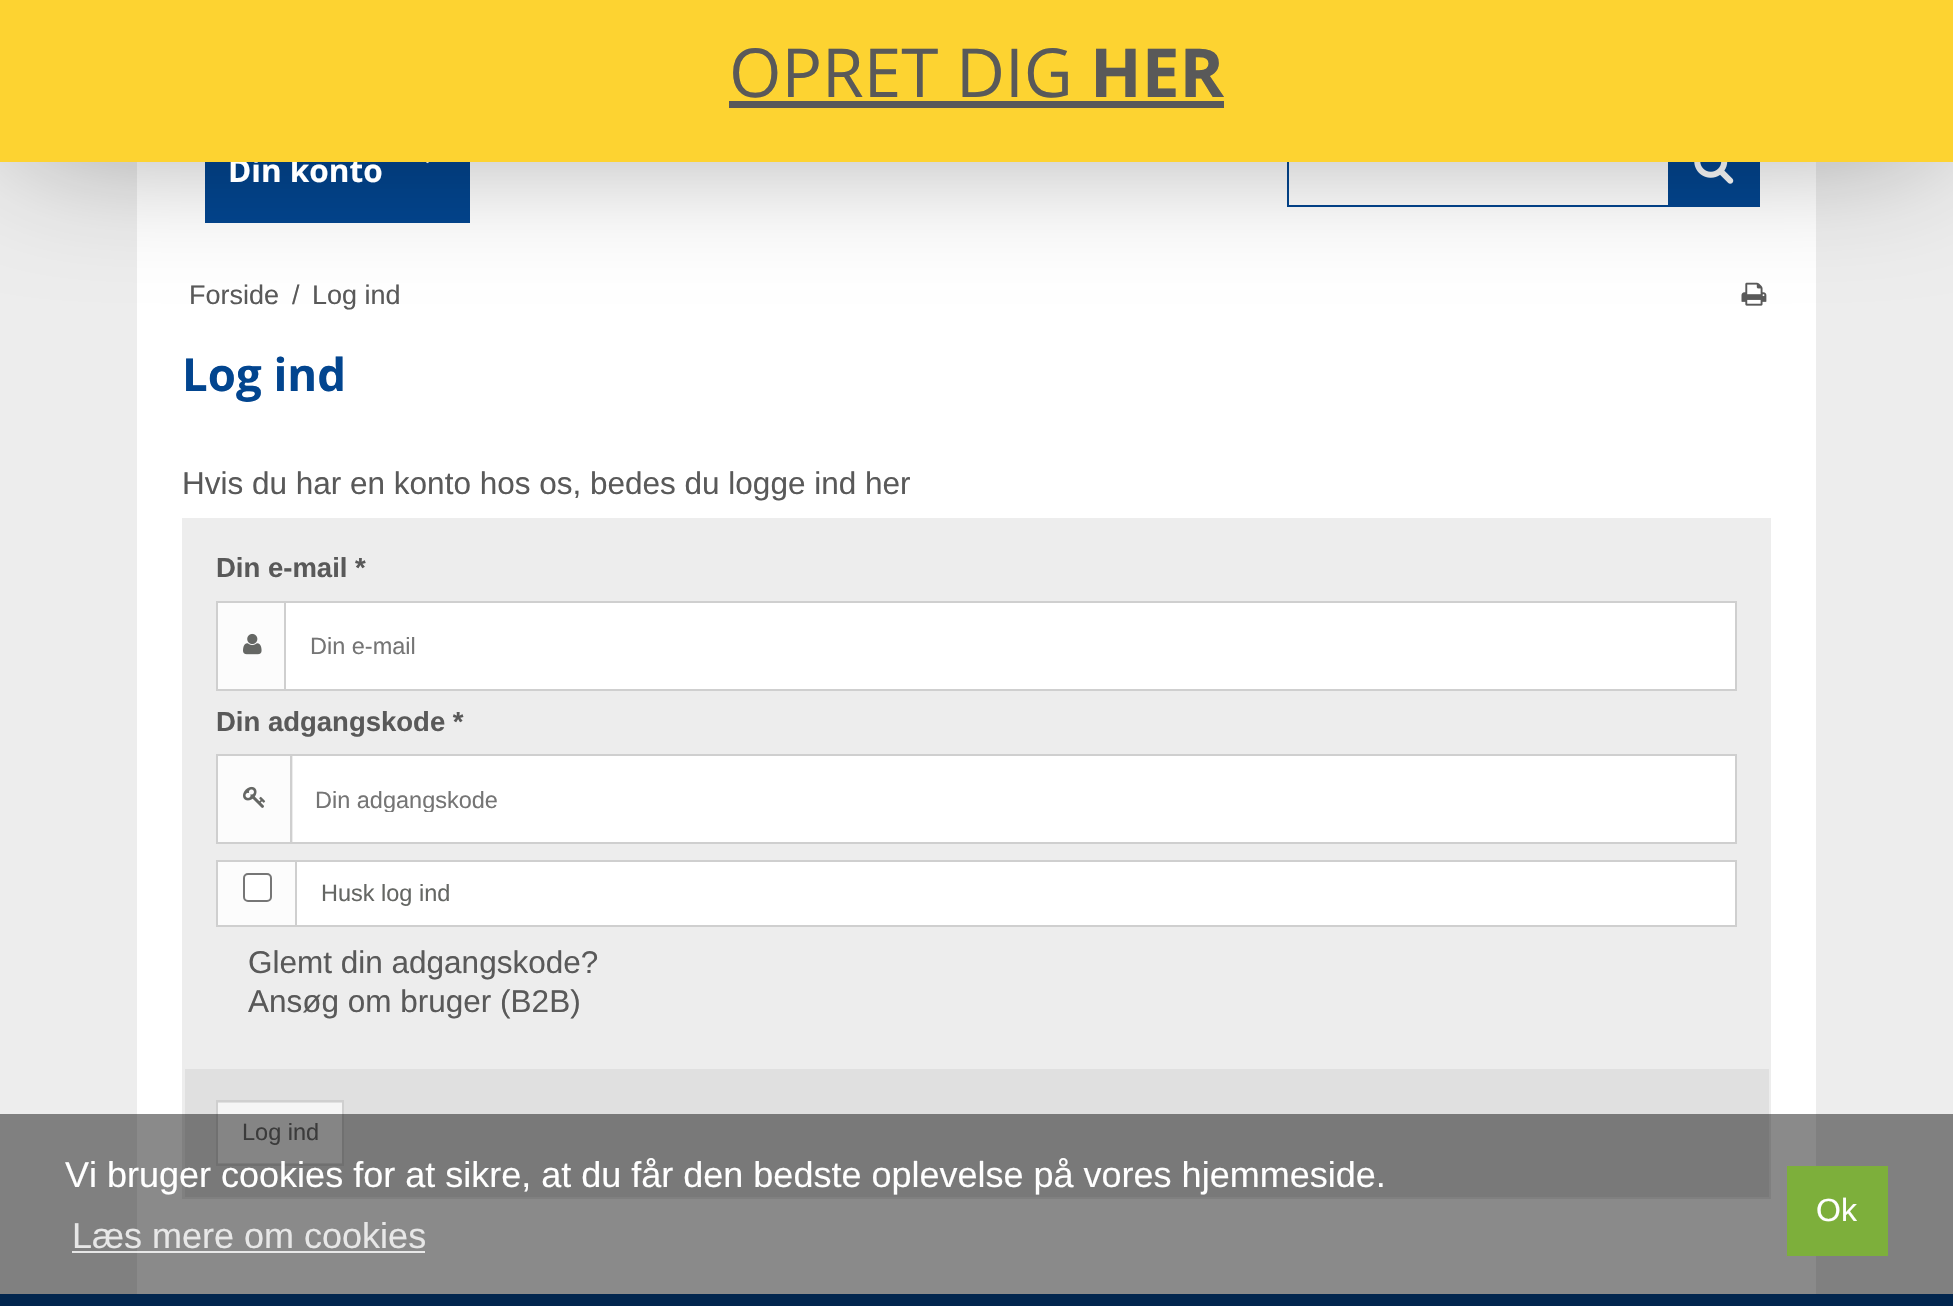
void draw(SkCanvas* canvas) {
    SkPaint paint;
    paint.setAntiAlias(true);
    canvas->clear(0xFFEDEDED);
    paint.setColor(0xFFFFFFFF);
    canvas->drawRect(SkRect::MakeXYWH(137, 162, 1679, 1132), paint);
    paint.setColor(0xFF02458F);
    canvas->drawRect(SkRect::MakeXYWH(205, 162, 265, 61), paint);
    canvas->drawImageRect(SkImages::DeferredFromEncodedData(SkData::MakeFromFileName("img1.png")), SkRect::MakeXYWH(426, 162, 3, 2), SkSamplingOptions());
    canvas->drawRect(SkRect::MakeXYWH(1670, 162, 90, 45), paint);
    paint.setStyle(SkPaint::kStroke_Style);
    paint.setStrokeWidth(2);
    canvas->drawRect(SkRect::MakeXYWH(1288, 118, 381, 88), paint);
    canvas->drawImageRect(SkImages::DeferredFromEncodedData(SkData::MakeFromFileName("img2.png")), SkRect::MakeXYWH(1694, 162, 40, 22), SkSamplingOptions());
    canvas->drawImageRect(SkImages::DeferredFromEncodedData(SkData::MakeFromFileName("img3.png")), SkRect::MakeXYWH(1741, 282, 26, 24), SkSamplingOptions());
    paint.setStyle(SkPaint::kFill_Style);
    paint.setColor(0x66000000);
    paint.setMaskFilter(SkMaskFilter::MakeBlur(kNormal_SkBlurStyle, 67.5f));
    canvas->drawRect(SkRect::MakeXYWH(20, 20, 1913, 122), paint);
    paint.setMaskFilter(nullptr);
    SkFont font1(fontMgr->matchFamilyStyle("Open Sans", SkFontStyle::Bold()), 31.5f);
    font1.setSubpixel(true);
    paint.setColor(0xFFFFFFFF);
    canvas->drawString("Din konto", 228, 182, font1, paint);
    paint.setColor(0xFFFDD331);
    canvas->drawRect(SkRect::MakeXYWH(0, 0, 1953, 162), paint);
    SkFont font2(fontMgr->matchFamilyStyle("Open Sans", SkFontStyle::Normal()), 67.5f);
    font2.setSubpixel(true);
    paint.setColor(0xFF595959);
    canvas->drawString("OPRET DIG", 729, 97, font2, paint);
    canvas->drawRect(SkRect::MakeXYWH(729, 101, 495, 7), paint);
    SkFont font3(fontMgr->matchFamilyStyle("Open Sans", SkFontStyle::Bold()), 67.5f);
    font3.setSubpixel(true);
    canvas->drawString("HER", 1090, 97, font3, paint);
    SkFont font4(fontMgr->matchFamilyStyle("Liberation Sans", SkFontStyle::Normal()), 27);
    font4.setSubpixel(true);
    canvas->drawString("Forside", 189, 304, font4, paint);
    canvas->drawString("/", 292, 304, font4, paint);
    canvas->drawString("Log ind", 312, 304, font4, paint);
    SkFont font5(fontMgr->matchFamilyStyle("Open Sans", SkFontStyle::Bold()), 45.5f);
    font5.setSubpixel(true);
    paint.setColor(0xFF02458F);
    canvas->drawString("Log ind", 182, 391, font5, paint);
    SkFont font6(fontMgr->matchFamilyStyle("Liberation Sans", SkFontStyle::Normal()), 31.5f);
    font6.setSubpixel(true);
    paint.setColor(0xFF595959);
    canvas->drawString("Hvis du har en konto hos os, bedes du logge ind her", 182, 494, font6, paint);
    paint.setColor(0xFFEDEDED);
    canvas->drawRect(SkRect::MakeXYWH(182, 518, 1589, 681), paint);
    SkFont font7(fontMgr->matchFamilyStyle("Liberation Sans", SkFontStyle::Bold()), 27.5f);
    font7.setSubpixel(true);
    paint.setColor(0xFF595959);
    canvas->drawString("Din e-mail *", 216, 577, font7, paint);
    paint.setColor(0xFFFCFCFC);
    canvas->drawRect(SkRect::MakeXYWH(218, 603, 66, 86), paint);
    paint.setColor(0xFFCFCFCF);
    canvas->drawRect(SkRect::MakeXYWH(216, 601, 68, 2), paint);
    canvas->drawRect(SkRect::MakeXYWH(216, 689, 68, 2), paint);
    canvas->drawRect(SkRect::MakeXYWH(216, 601, 2, 90), paint);
    canvas->drawImageRect(SkImages::DeferredFromEncodedData(SkData::MakeFromFileName("img4.png")), SkRect::MakeXYWH(243, 633, 19, 22), SkSamplingOptions());
    paint.setColor(0xFFFFFFFF);
    canvas->drawRect(SkRect::MakeXYWH(285, 602, 1451, 88), paint);
    paint.setStyle(SkPaint::kStroke_Style);
    paint.setColor(0xFFCFCFCF);
    canvas->drawRect(SkRect::MakeXYWH(285, 602, 1451, 88), paint);
    SkFont font8(fontMgr->matchFamilyStyle("Liberation Sans", SkFontStyle::Normal()), 23.5f);
    font8.setSubpixel(true);
    paint.setStyle(SkPaint::kFill_Style);
    paint.setColor(0xFF757575);
    canvas->drawString("Din e-mail", 310, 654, font8, paint);
    paint.setColor(0xFF595959);
    canvas->drawString("Din adgangskode *", 216, 731, font7, paint);
    paint.setColor(0xFFFCFCFC);
    canvas->drawRect(SkRect::MakeXYWH(218, 756, 72, 86), paint);
    paint.setColor(0xFFCFCFCF);
    canvas->drawRect(SkRect::MakeXYWH(216, 754, 74, 2), paint);
    canvas->drawRect(SkRect::MakeXYWH(216, 842, 74, 2), paint);
    canvas->drawRect(SkRect::MakeXYWH(216, 754, 2, 90), paint);
    canvas->drawImageRect(SkImages::DeferredFromEncodedData(SkData::MakeFromFileName("img5.png")), SkRect::MakeXYWH(243, 786, 23, 22), SkSamplingOptions());
    paint.setColor(0xFFFFFFFF);
    canvas->drawRect(SkRect::MakeXYWH(293, 756, 1442, 86), paint);
    paint.setStyle(SkPaint::kStroke_Style);
    paint.setColor(0xFFCFCFCF);
    canvas->drawRect(SkRect::MakeXYWH(291, 755, 1445, 88), paint);
    canvas->save();
    canvas->clipRect(SkRect::MakeXYWH(315, 785, 1397, 27));
    paint.setStyle(SkPaint::kFill_Style);
    paint.setColor(0xFF757575);
    canvas->drawString("Din adgangskode", 315, 808, font8, paint);
    canvas->restore();
    paint.setColor(0xFFFCFCFC);
    canvas->drawRect(SkRect::MakeXYWH(218, 862, 77, 63), paint);
    paint.setColor(0xFFCFCFCF);
    canvas->drawRect(SkRect::MakeXYWH(216, 860, 79, 2), paint);
    canvas->drawRect(SkRect::MakeXYWH(216, 925, 79, 2), paint);
    canvas->drawRect(SkRect::MakeXYWH(216, 860, 2, 67), paint);
    paint.setColor(0xFFFFFFFF);
    canvas->drawRoundRect(SkRect::MakeXYWH(244, 874, 27, 27), 4, 4, paint);
    paint.setStyle(SkPaint::kStroke_Style);
    paint.setColor(0xFF767676);
    canvas->drawRoundRect(SkRect::MakeXYWH(244, 874, 27, 27), 4, 4, paint);
    paint.setStyle(SkPaint::kFill_Style);
    paint.setColor(0xFFFFFFFF);
    canvas->drawRect(SkRect::MakeXYWH(296, 861, 1440, 65), paint);
    paint.setStyle(SkPaint::kStroke_Style);
    paint.setColor(0xFFCFCFCF);
    canvas->drawRect(SkRect::MakeXYWH(296, 861, 1440, 65), paint);
    paint.setStyle(SkPaint::kFill_Style);
    paint.setColor(0xFF656764);
    canvas->drawString("Husk log ind", 321, 901, font8, paint);
    paint.setColor(0xFF595959);
    canvas->drawString("Glemt din adgangskode?", 248, 973, font6, paint);
    canvas->drawString("Ansøg om bruger (B2B)", 248, 1012, font6, paint);
    paint.setColor(0xFFE0E0E0);
    canvas->drawRect(SkRect::MakeXYWH(185, 1069, 1584, 128), paint);
    paint.setColor(0xFFF5F5F5);
    canvas->drawRect(SkRect::MakeXYWH(218, 1103, 124, 60), paint);
    paint.setStyle(SkPaint::kStroke_Style);
    paint.setColor(0xFFCFCFCF);
    canvas->drawRect(SkRect::MakeXYWH(217, 1101, 126, 64), paint);
    paint.setStyle(SkPaint::kFill_Style);
    paint.setColor(0xFF6C6C6C);
    canvas->drawString("Log ind", 242, 1140, font8, paint);
    paint.setColor(0xFF02458F);
    canvas->drawRect(SkRect::MakeXYWH(0, 1294, 1953, 12), paint);
    paint.setColor(0x75000000);
    canvas->drawRect(SkRect::MakeXYWH(0, 1114, 1953, 192), paint);
    SkFont font9(fontMgr->matchFamilyStyle("Liberation Sans", SkFontStyle::Normal()), 36);
    font9.setSubpixel(true);
    paint.setColor(0xFFFFFFFF);
    canvas->drawString("Vi bruger cookies for at sikre, at du får den bedste oplevelse på vores hjemmeside.", 65, 1187, font9, paint);
    paint.setColor(0xFFE7E7E7);
    canvas->drawString("Læs mere om cookies", 72, 1248, font9, paint);
    paint.setColor(0xCCFFFFFF);
    canvas->drawRect(SkRect::MakeXYWH(72, 1251, 353, 2), paint);
    paint.setColor(0xFF7DAF3B);
    canvas->drawRect(SkRect::MakeXYWH(1787, 1166, 101, 90), paint);
    SkFont font10(fontMgr->matchFamilyStyle("Liberation Sans", SkFontStyle::Normal()), 32);
    font10.setSubpixel(true);
    paint.setColor(0xFFFFFFFF);
    canvas->drawString("Ok", 1816, 1221, font10, paint);
}
